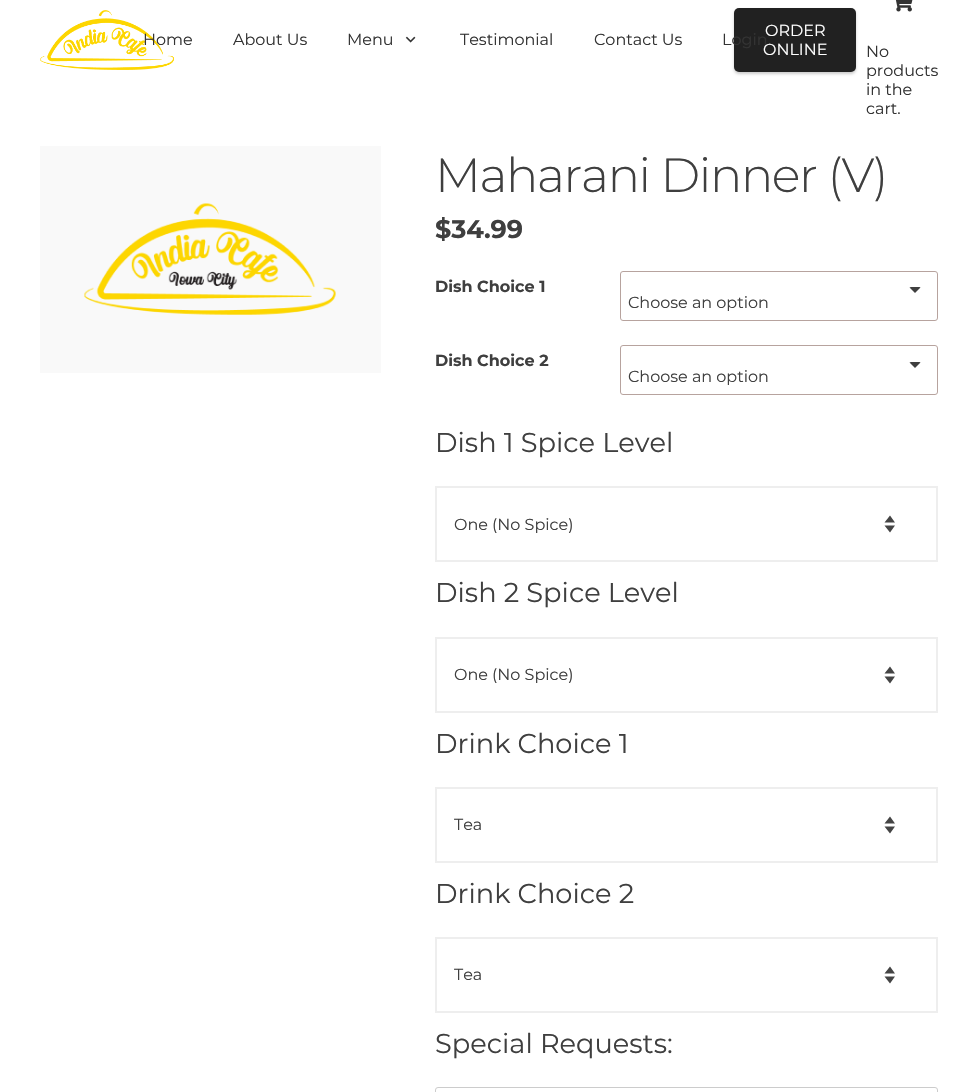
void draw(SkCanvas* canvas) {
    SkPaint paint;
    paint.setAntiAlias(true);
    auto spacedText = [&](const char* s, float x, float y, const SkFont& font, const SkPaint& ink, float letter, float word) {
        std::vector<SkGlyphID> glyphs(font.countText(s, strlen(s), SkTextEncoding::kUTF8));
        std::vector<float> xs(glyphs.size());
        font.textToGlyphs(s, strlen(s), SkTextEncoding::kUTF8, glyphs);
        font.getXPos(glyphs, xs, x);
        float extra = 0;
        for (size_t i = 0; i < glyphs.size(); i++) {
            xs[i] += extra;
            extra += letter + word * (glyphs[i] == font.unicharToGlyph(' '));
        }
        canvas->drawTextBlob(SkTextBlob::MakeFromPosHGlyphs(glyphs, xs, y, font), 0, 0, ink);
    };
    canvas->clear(0xFFFFFFFF);
    canvas->drawImageRect(SkImages::DeferredFromEncodedData(SkData::MakeFromFileName("img1.png")), SkRect::MakeXYWH(40, 10, 134, 60), SkSamplingOptions());
    SkFont font1(fontMgr->matchFamilyStyle("Montserrat", SkFontStyle::Normal()), 16);
    font1.setSubpixel(true);
    paint.setColor(0xFF333333);
    canvas->drawString("Home", 143, 45, font1, paint);
    canvas->drawString("About Us", 233, 45, font1, paint);
    canvas->drawString("Menu", 347, 45, font1, paint);
    canvas->drawImageRect(SkImages::DeferredFromEncodedData(SkData::MakeFromFileName("img2.png")), SkRect::MakeXYWH(405, 36, 11, 7), SkSamplingOptions());
    canvas->drawString("Testimonial", 460, 45, font1, paint);
    canvas->drawString("Contact Us", 594, 45, font1, paint);
    paint.setColor(0x33000000);
    paint.setMaskFilter(SkMaskFilter::MakeBlur(kNormal_SkBlurStyle, 1.5f));
    canvas->drawRoundRect(SkRect::MakeXYWH(734, 10, 122, 64), 5, 5, paint);
    paint.setMaskFilter(nullptr);
    paint.setColor(0xFF212121);
    canvas->drawRoundRect(SkRect::MakeXYWH(734, 8, 122, 64), 5, 5, paint);
    paint.setColor(0xFFFFFFFF);
    canvas->drawString("ONLINE", 763, 55, font1, paint);
    paint.setColor(0xFF333333);
    canvas->drawString("Login", 722, 45, font1, paint);
    paint.setColor(0xFFFFFFFF);
    canvas->drawString("ORDER", 765, 36, font1, paint);
    canvas->drawImageRect(SkImages::DeferredFromEncodedData(SkData::MakeFromFileName("img3.png")), SkRect::MakeXYWH(895, 0, 18, 12), SkSamplingOptions());
    paint.setColor(0xFF333333);
    canvas->drawString("No", 866, 57, font1, paint);
    canvas->drawString("products", 866, 76, font1, paint);
    canvas->drawString("in the", 866, 95, font1, paint);
    canvas->drawString("cart.", 866, 114, font1, paint);
    canvas->drawImageRect(SkImages::DeferredFromEncodedData(SkData::MakeFromFileName("img4.png")), SkRect::MakeXYWH(40, 146, 341, 227), SkSamplingOptions());
    SkFont font2(fontMgr->matchFamilyStyle("Montserrat", SkFontStyle(300, SkFontStyle::kNormal_Width, SkFontStyle::kUpright_Slant)), 48);
    font2.setSubpixel(true);
    paint.setColor(0xFF3F3F3F);
    spacedText("Maharani Dinner (V)", 435, 192, font2, paint, -1.4f, 0);
    SkFont font3(fontMgr->matchFamilyStyle("Montserrat", SkFontStyle::Bold()), 25.5f);
    font3.setSubpixel(true);
    canvas->drawString("$34.99", 435, 238, font3, paint);
    SkFont font4(fontMgr->matchFamilyStyle("Montserrat", SkFontStyle::Bold()), 16);
    font4.setSubpixel(true);
    canvas->drawString("Dish Choice 1", 435, 292, font4, paint);
    paint.setStyle(SkPaint::kStroke_Style);
    paint.setStrokeWidth(1);
    paint.setColor(0xFFB7A39E);
    canvas->drawRoundRect(SkRect::MakeXYWH(620.5f, 271.5f, 317, 49), 2.5f, 2.5f, paint);
    paint.setStyle(SkPaint::kFill_Style);
    paint.setColor(0xFF3F3F3F);
    canvas->drawPath(SkPathBuilder().moveTo(911, 287).lineTo(909.5f, 287.5f).lineTo(915, 293).lineTo(920.5f, 287.5f).cubicTo(920, 287, 919, 287, 917.5f, 287).close().detach(), paint);
    canvas->drawString("Choose an option", 628, 308, font1, paint);
    canvas->drawString("Dish Choice 2", 435, 366, font4, paint);
    paint.setStyle(SkPaint::kStroke_Style);
    paint.setColor(0xFFB7A39E);
    canvas->drawRoundRect(SkRect::MakeXYWH(620.5f, 345.5f, 317, 49), 2.5f, 2.5f, paint);
    paint.setStyle(SkPaint::kFill_Style);
    paint.setColor(0xFF3F3F3F);
    canvas->drawPath(SkPathBuilder().moveTo(911, 362).lineTo(909.5f, 362.5f).lineTo(915, 368).lineTo(920.5f, 362.5f).cubicTo(920, 362, 919, 362, 917.5f, 362).close().detach(), paint);
    canvas->drawString("Choose an option", 628, 382, font1, paint);
    SkFont font5(fontMgr->matchFamilyStyle("Montserrat", SkFontStyle::Normal()), 27.25f);
    font5.setSubpixel(true);
    canvas->drawString("Dish 1 Spice Level", 435, 452, font5, paint);
    paint.setStyle(SkPaint::kStroke_Style);
    paint.setStrokeWidth(2);
    paint.setColor(0xFFEEEEEE);
    canvas->drawRect(SkRect::MakeXYWH(436, 487, 501, 74), paint);
    paint.setStyle(SkPaint::kFill_Style);
    paint.setColor(0xFF444444);
    canvas->drawPath(SkPathBuilder().moveTo(884.5f, 522.5f).lineTo(890, 515.5f).lineTo(895, 522.5f).close().moveTo(895, 525.5f).lineTo(890, 532.5f).lineTo(884.5f, 525.5f).close().detach(), paint);
    canvas->save();
    canvas->clipRect(SkRect::MakeXYWH(454, 516, 465, 17));
    paint.setColor(0xFF3F3F3F);
    canvas->drawString("One (No Spice)", 454, 530, font1, paint);
    canvas->restore();
    canvas->drawString("Dish 2 Spice Level", 435, 602, font5, paint);
    paint.setStyle(SkPaint::kStroke_Style);
    paint.setColor(0xFFEEEEEE);
    canvas->drawRect(SkRect::MakeXYWH(436, 638, 501, 74), paint);
    paint.setStyle(SkPaint::kFill_Style);
    paint.setColor(0xFF444444);
    canvas->drawPath(SkPathBuilder().moveTo(884.5f, 673.5f).lineTo(890, 666.5f).lineTo(895, 673.5f).close().moveTo(895, 676.5f).lineTo(890, 683.5f).lineTo(884.5f, 676.5f).close().detach(), paint);
    canvas->save();
    canvas->clipRect(SkRect::MakeXYWH(454, 666, 465, 17));
    paint.setColor(0xFF3F3F3F);
    canvas->drawString("One (No Spice)", 454, 680, font1, paint);
    canvas->restore();
    canvas->drawString("Drink Choice 1", 435, 753, font5, paint);
    paint.setStyle(SkPaint::kStroke_Style);
    paint.setColor(0xFFEEEEEE);
    canvas->drawRect(SkRect::MakeXYWH(436, 788, 501, 74), paint);
    paint.setStyle(SkPaint::kFill_Style);
    paint.setColor(0xFF444444);
    canvas->drawPath(SkPathBuilder().moveTo(884.5f, 823.5f).lineTo(890, 816.5f).lineTo(895, 823.5f).close().moveTo(895, 826.5f).lineTo(890, 833.5f).lineTo(884.5f, 826.5f).close().detach(), paint);
    paint.setColor(0xFF3F3F3F);
    canvas->drawString("Tea", 454, 830, font1, paint);
    canvas->drawString("Drink Choice 2", 435, 903, font5, paint);
    paint.setStyle(SkPaint::kStroke_Style);
    paint.setColor(0xFFEEEEEE);
    canvas->drawRect(SkRect::MakeXYWH(436, 938, 501, 74), paint);
    paint.setStyle(SkPaint::kFill_Style);
    paint.setColor(0xFF444444);
    canvas->drawPath(SkPathBuilder().moveTo(884.5f, 973.5f).lineTo(890, 966.5f).lineTo(895, 973.5f).close().moveTo(895, 976.5f).lineTo(890, 983.5f).lineTo(884.5f, 976.5f).close().detach(), paint);
    paint.setColor(0xFF3F3F3F);
    canvas->drawString("Tea", 454, 980, font1, paint);
    canvas->drawString("Special Requests:", 435, 1053, font5, paint);
    paint.setStyle(SkPaint::kStroke_Style);
    paint.setStrokeWidth(1);
    paint.setColor(0xFFCCCCCC);
    canvas->drawRoundRect(SkRect::MakeXYWH(435.5f, 1087.5f, 502, 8), 2.5f, 2.5f, paint);
}
